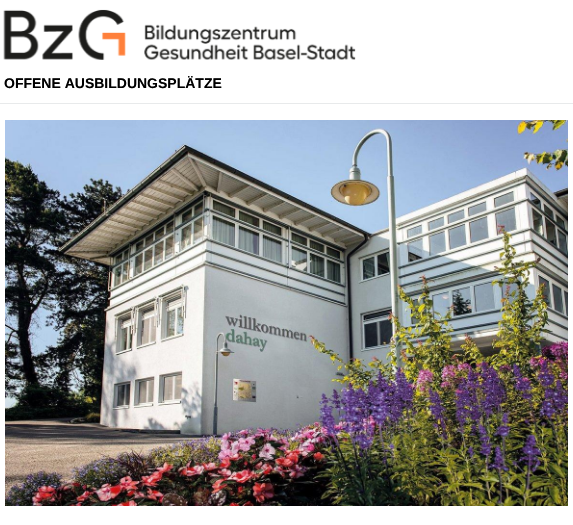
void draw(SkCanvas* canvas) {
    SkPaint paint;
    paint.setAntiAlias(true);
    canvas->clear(0xFFFFFFFF);
    canvas->drawImageRect(SkImages::DeferredFromEncodedData(SkData::MakeFromFileName("img1.png")), SkRect::MakeXYWH(3, 9, 353, 51), SkSamplingOptions());
    paint.setColor(0xFFE8EAEB);
    canvas->drawRect(SkRect::MakeXYWH(0, 103, 573, 1), paint);
    SkFont font1(fontMgr->matchFamilyStyle("Liberation Sans", SkFontStyle::Bold()), 14);
    font1.setSubpixel(true);
    paint.setColor(0xFF000000);
    canvas->drawString("OFFENE AUSBILDUNGSPLÄTZE", 4, 88, font1, paint);
    canvas->drawImageRect(SkImages::DeferredFromEncodedData(SkData::MakeFromFileName("img2.png")), SkRect::MakeXYWH(5, 120, 563, 386), SkSamplingOptions());
}
